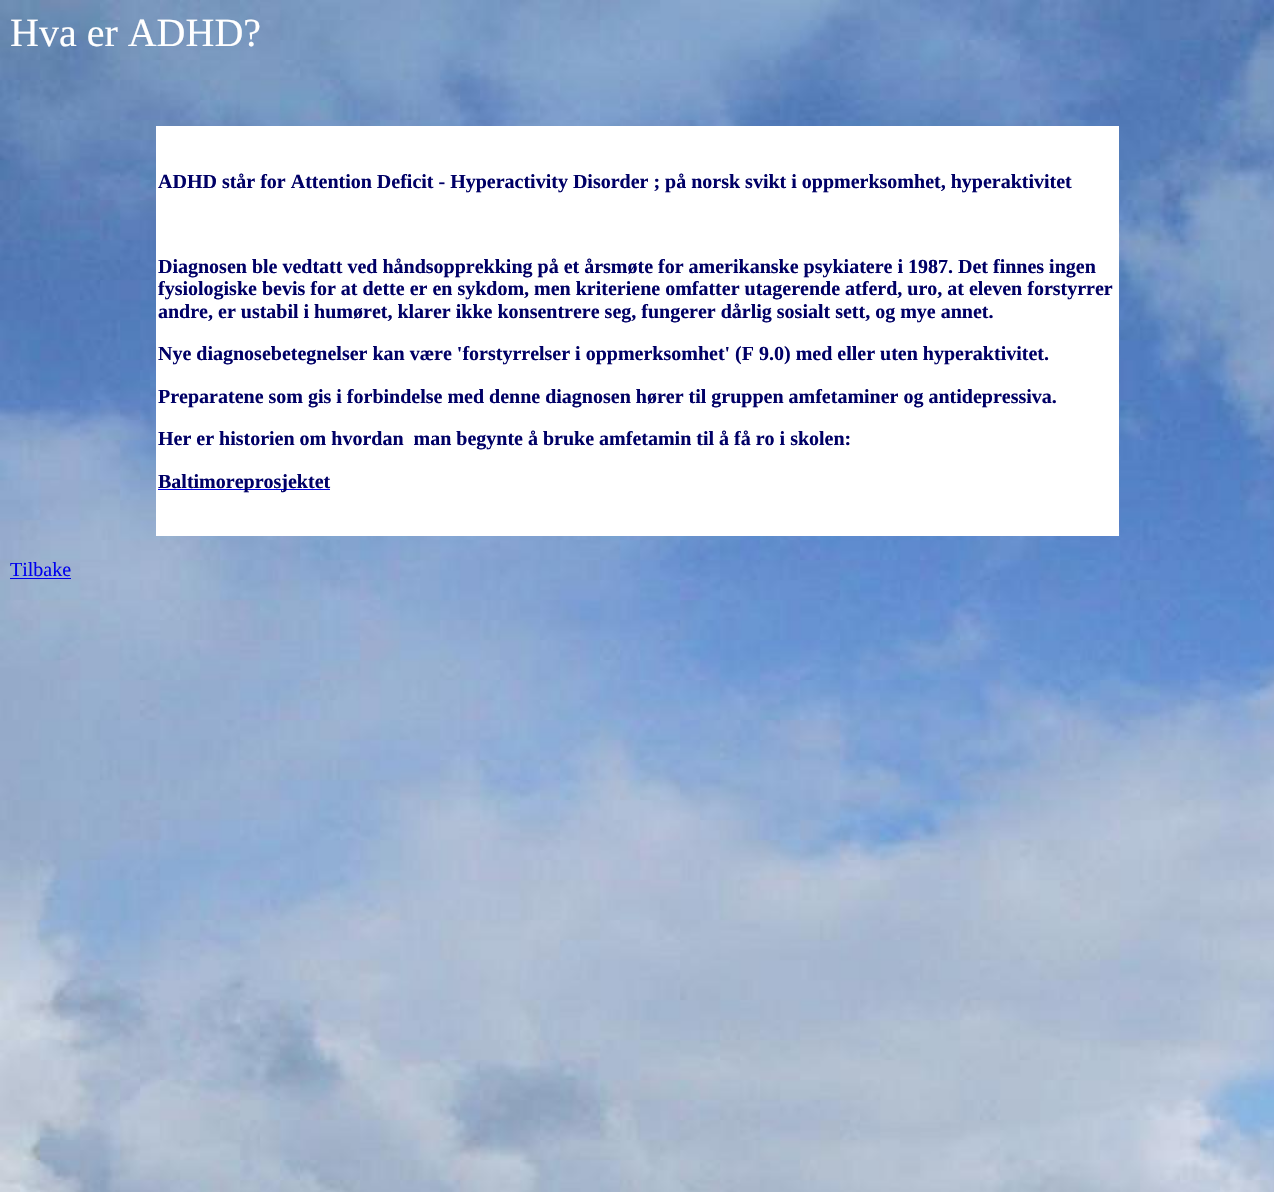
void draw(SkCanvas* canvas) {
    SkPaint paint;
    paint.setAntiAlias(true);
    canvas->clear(0xFFFFFFFF);
    canvas->drawImageRect(SkImages::DeferredFromEncodedData(SkData::MakeFromFileName("img1.png")), SkRect::MakeXYWH(0, 0, 1274, 1192), SkSamplingOptions());
    SkFont font1(fontMgr->matchFamilyStyle("Liberation Serif", SkFontStyle::Normal()), 40);
    font1.setSubpixel(true);
    paint.setColor(0xFFFFFFFF);
    canvas->drawString("Hva er ADHD?", 10, 46, font1, paint);
    canvas->drawRect(SkRect::MakeXYWH(156, 126, 963, 410), paint);
    SkFont font2(fontMgr->matchFamilyStyle("Liberation Serif", SkFontStyle::Bold()), 20);
    font2.setSubpixel(true);
    paint.setColor(0xFF000066);
    canvas->drawString("ADHD står for Attention Deficit - Hyperactivity Disorder ; på norsk svikt i oppmerksomhet, hyperaktivitet", 158, 188, font2, paint);
    canvas->drawString("Diagnosen ble vedtatt ved håndsopprekking på et årsmøte for amerikanske psykiatere i 1987. Det finnes ingen", 158, 273, font2, paint);
    canvas->drawString("fysiologiske bevis for at dette er en sykdom, men kriteriene omfatter utagerende atferd, uro, at eleven forstyrrer", 158, 295, font2, paint);
    canvas->drawString("andre, er ustabil i humøret, klarer ikke konsentrere seg, fungerer dårlig sosialt sett, og mye annet.", 158, 318, font2, paint);
    canvas->drawString("Nye diagnosebetegnelser kan være 'forstyrrelser i oppmerksomhet' (F 9.0) med eller uten hyperaktivitet.", 158, 360, font2, paint);
    canvas->drawString("Preparatene som gis i forbindelse med denne diagnosen hører til gruppen amfetaminer og antidepressiva.", 158, 403, font2, paint);
    canvas->drawString("Her er historien om hvordan  man begynte å bruke amfetamin til å få ro i skolen:", 158, 445, font2, paint);
    paint.setColor(0xFF0000EE);
    canvas->drawRect(SkRect::MakeXYWH(158, 489, 172, 1), paint);
    paint.setColor(0xFF000066);
    canvas->drawString("Baltimoreprosjektet", 158, 488, font2, paint);
    SkFont font3(fontMgr->matchFamilyStyle("Liberation Serif", SkFontStyle::Normal()), 20);
    font3.setSubpixel(true);
    paint.setColor(0xFF0000EE);
    canvas->drawString("Tilbake", 10, 576, font3, paint);
    canvas->drawRect(SkRect::MakeXYWH(10, 578, 61, 1), paint);
}
